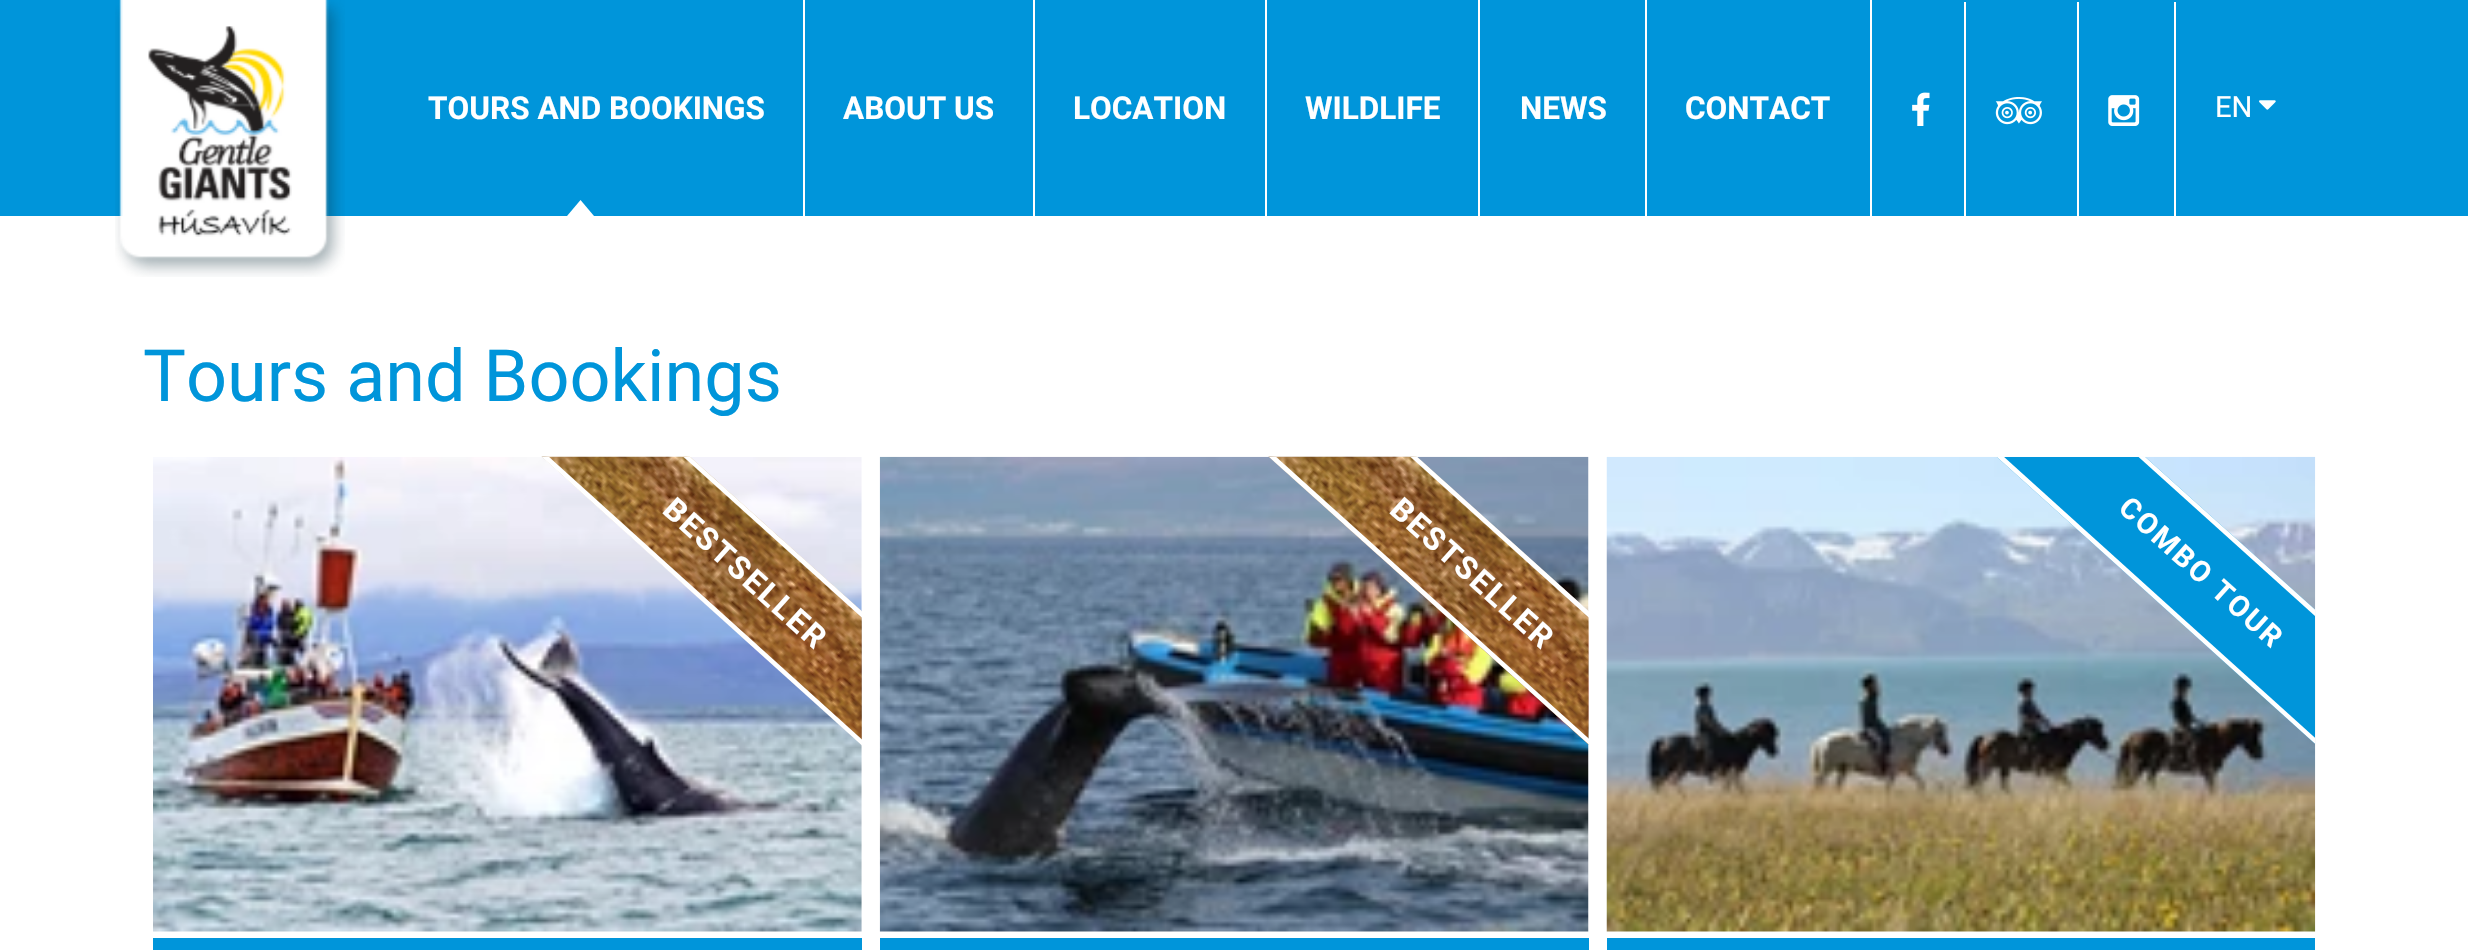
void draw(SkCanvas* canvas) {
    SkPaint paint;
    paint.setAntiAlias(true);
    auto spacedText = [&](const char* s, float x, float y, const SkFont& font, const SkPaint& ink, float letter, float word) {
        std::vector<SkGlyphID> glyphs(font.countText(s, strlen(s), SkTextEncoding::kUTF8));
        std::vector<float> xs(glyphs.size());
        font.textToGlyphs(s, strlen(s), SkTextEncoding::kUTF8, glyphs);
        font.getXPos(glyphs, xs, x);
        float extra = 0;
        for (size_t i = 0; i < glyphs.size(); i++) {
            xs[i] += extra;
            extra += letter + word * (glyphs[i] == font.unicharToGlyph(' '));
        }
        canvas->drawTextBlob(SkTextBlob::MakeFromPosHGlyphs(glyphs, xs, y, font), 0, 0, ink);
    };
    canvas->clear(0xFF0095DA);
    paint.setColor(0xFFFFFFFF);
    canvas->drawRect(SkRect::MakeXYWH(0, 216, 2468, 734), paint);
    canvas->drawImageRect(SkImages::DeferredFromEncodedData(SkData::MakeFromFileName("img1.png")), SkRect::MakeXYWH(115, 0, 230, 277), SkSamplingOptions());
    canvas->drawRect(SkRect::MakeXYWH(803, 0, 2, 216), paint);
    SkFont font1(fontMgr->matchFamilyStyle("Roboto", SkFontStyle::Bold()), 31.5f);
    font1.setSubpixel(true);
    canvas->drawString("TOURS AND BOOKINGS", 428, 119, font1, paint);
    canvas->drawPath(SkPathBuilder().moveTo(594, 216).lineTo(567, 216).lineTo(580.5f, 200).close().detach(), paint);
    canvas->drawRect(SkRect::MakeXYWH(1033, 0, 2, 216), paint);
    canvas->drawString("ABOUT US", 843, 119, font1, paint);
    canvas->drawRect(SkRect::MakeXYWH(1265, 0, 2, 216), paint);
    canvas->drawString("LOCATION", 1073, 119, font1, paint);
    canvas->drawRect(SkRect::MakeXYWH(1478, 0, 2, 216), paint);
    canvas->drawString("WILDLIFE", 1305, 119, font1, paint);
    canvas->drawRect(SkRect::MakeXYWH(1645, 0, 2, 216), paint);
    canvas->drawString("NEWS", 1520, 119, font1, paint);
    canvas->drawRect(SkRect::MakeXYWH(1870, 0, 2, 216), paint);
    canvas->drawString("CONTACT", 1685, 119, font1, paint);
    canvas->drawRect(SkRect::MakeXYWH(1964, 2, 2, 214), paint);
    canvas->drawImageRect(SkImages::DeferredFromEncodedData(SkData::MakeFromFileName("img2.png")), SkRect::MakeXYWH(1912, 92, 18, 34), SkSamplingOptions());
    canvas->drawRect(SkRect::MakeXYWH(2077, 2, 2, 214), paint);
    canvas->drawImageRect(SkImages::DeferredFromEncodedData(SkData::MakeFromFileName("img3.png")), SkRect::MakeXYWH(1995, 97, 47, 28), SkSamplingOptions());
    canvas->drawRect(SkRect::MakeXYWH(2174, 2, 2, 214), paint);
    canvas->drawImageRect(SkImages::DeferredFromEncodedData(SkData::MakeFromFileName("img4.png")), SkRect::MakeXYWH(2108, 95, 32, 31), SkSamplingOptions());
    SkFont font2(fontMgr->matchFamilyStyle("Roboto", SkFontStyle::Normal()), 29.25f);
    font2.setSubpixel(true);
    canvas->drawString("EN", 2215, 117, font2, paint);
    canvas->drawImageRect(SkImages::DeferredFromEncodedData(SkData::MakeFromFileName("img5.png")), SkRect::MakeXYWH(2259, 100, 17, 10), SkSamplingOptions());
    SkFont font3(fontMgr->matchFamilyStyle("Roboto", SkFontStyle::Normal()), 72);
    font3.setSubpixel(true);
    paint.setColor(0xFF0095DA);
    canvas->drawString("Tours and Bookings", 143, 401, font3, paint);
    canvas->drawImageRect(SkImages::DeferredFromEncodedData(SkData::MakeFromFileName("img6.png")), SkRect::MakeXYWH(153, 457, 709, 475), SkSamplingOptions());
    canvas->drawImageRect(SkImages::DeferredFromEncodedData(SkData::MakeFromFileName("img7.png")), SkRect::MakeXYWH(541, 456, 321, 289), SkSamplingOptions());
    canvas->save();
    canvas->clipRect(SkRect::MakeXYWH(153, 457, 709, 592));
    paint.setColor(0xFFFFFFFF);
    canvas->drawPath(SkPathBuilder().moveTo(549, 330).lineTo(984, 721).lineTo(981, 725).lineTo(546, 333).close().detach(), paint);
    canvas->drawPath(SkPathBuilder().moveTo(486, 400).lineTo(920, 792).lineTo(917, 795).lineTo(483, 404).close().detach(), paint);
    canvas->restore();
    canvas->save();
    canvas->rotate(42, 661, 512);
    spacedText("BESTSELLER", 661, 512, font1, paint, 2.25f, 0);
    canvas->restore();
    paint.setColor(0xFF0095DA);
    canvas->drawRect(SkRect::MakeXYWH(153, 938, 709, 12), paint);
    canvas->drawImageRect(SkImages::DeferredFromEncodedData(SkData::MakeFromFileName("img8.png")), SkRect::MakeXYWH(879, 456, 710, 476), SkSamplingOptions());
    canvas->drawImageRect(SkImages::DeferredFromEncodedData(SkData::MakeFromFileName("img9.png")), SkRect::MakeXYWH(1268, 456, 321, 289), SkSamplingOptions());
    canvas->save();
    canvas->clipRect(SkRect::MakeXYWH(880, 457, 709, 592));
    paint.setColor(0xFFFFFFFF);
    canvas->drawPath(SkPathBuilder().moveTo(1276, 330).lineTo(1711, 721).lineTo(1708, 725).lineTo(1273, 333).close().detach(), paint);
    canvas->drawPath(SkPathBuilder().moveTo(1213, 400).lineTo(1648, 792).lineTo(1645, 795).lineTo(1210, 404).close().detach(), paint);
    canvas->restore();
    canvas->save();
    canvas->rotate(42, 1388, 512);
    spacedText("BESTSELLER", 1388, 512, font1, paint, 2.25f, 0);
    canvas->restore();
    paint.setColor(0xFF0095DA);
    canvas->drawRect(SkRect::MakeXYWH(880, 938, 709, 12), paint);
    canvas->drawImageRect(SkImages::DeferredFromEncodedData(SkData::MakeFromFileName("img10.png")), SkRect::MakeXYWH(1606, 456, 710, 476), SkSamplingOptions());
    canvas->save();
    canvas->clipRect(SkRect::MakeXYWH(1607, 457, 708, 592));
    canvas->drawPath(SkPathBuilder().moveTo(2004, 330).lineTo(2439, 721).lineTo(2372, 795).lineTo(1938, 404).close().detach(), paint);
    paint.setColor(0xFFFFFFFF);
    canvas->drawPath(SkPathBuilder().moveTo(2004, 330).lineTo(2439, 721).lineTo(2436, 725).lineTo(2001, 333).close().detach(), paint);
    canvas->drawPath(SkPathBuilder().moveTo(1941, 400).lineTo(2375, 792).lineTo(2372, 795).lineTo(1938, 404).close().detach(), paint);
    canvas->restore();
    SkFont font4(fontMgr->matchFamilyStyle("Roboto", SkFontStyle::Bold()), 29.25f);
    font4.setSubpixel(true);
    canvas->save();
    canvas->rotate(42, 2117, 510);
    spacedText("COMBO TOUR", 2117, 510, font4, paint, 2.25f, 0);
    canvas->restore();
    paint.setColor(0xFF0095DA);
    canvas->drawRect(SkRect::MakeXYWH(1607, 938, 708, 12), paint);
}
